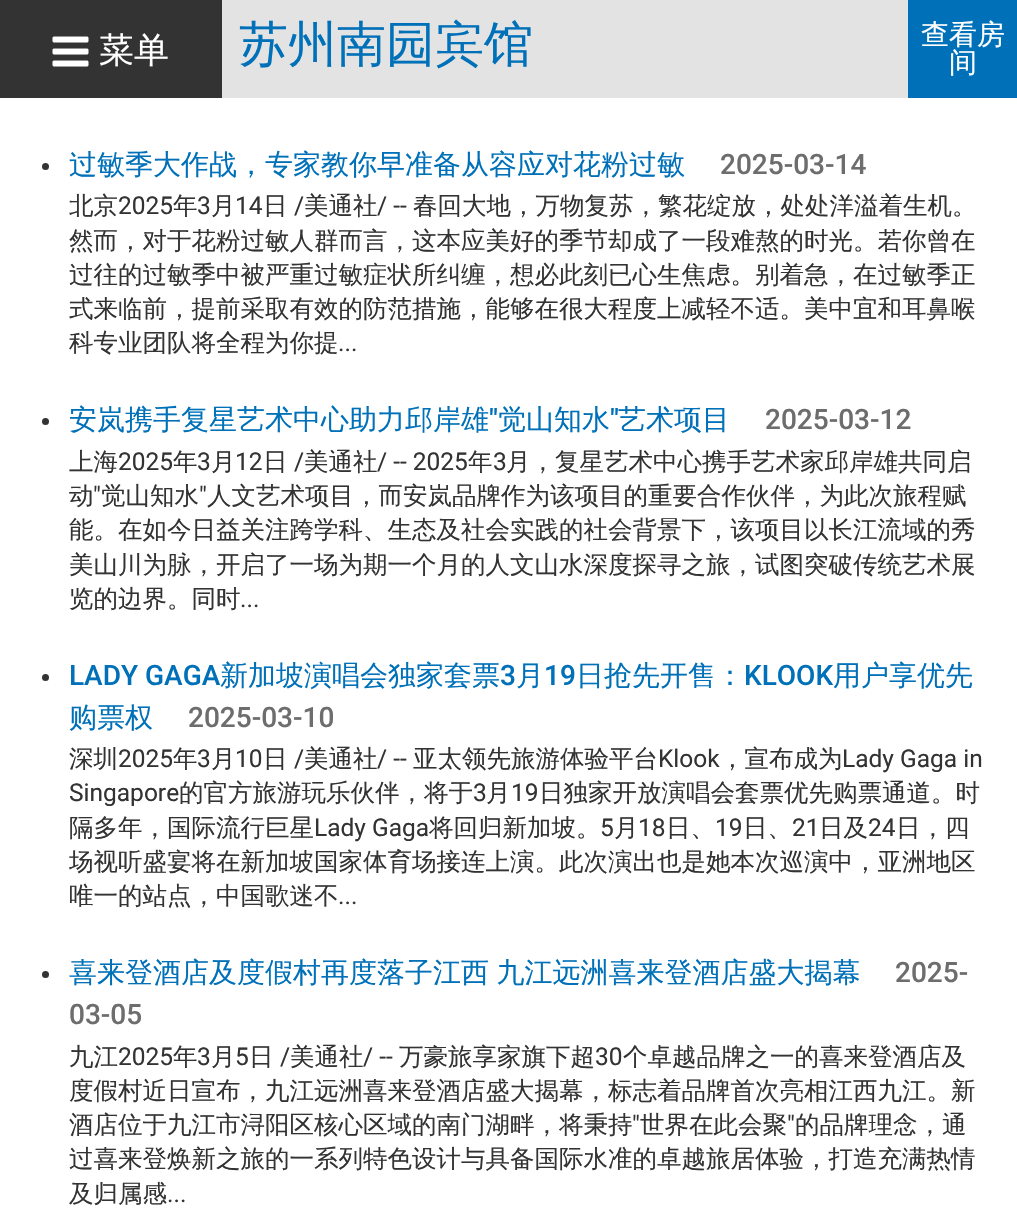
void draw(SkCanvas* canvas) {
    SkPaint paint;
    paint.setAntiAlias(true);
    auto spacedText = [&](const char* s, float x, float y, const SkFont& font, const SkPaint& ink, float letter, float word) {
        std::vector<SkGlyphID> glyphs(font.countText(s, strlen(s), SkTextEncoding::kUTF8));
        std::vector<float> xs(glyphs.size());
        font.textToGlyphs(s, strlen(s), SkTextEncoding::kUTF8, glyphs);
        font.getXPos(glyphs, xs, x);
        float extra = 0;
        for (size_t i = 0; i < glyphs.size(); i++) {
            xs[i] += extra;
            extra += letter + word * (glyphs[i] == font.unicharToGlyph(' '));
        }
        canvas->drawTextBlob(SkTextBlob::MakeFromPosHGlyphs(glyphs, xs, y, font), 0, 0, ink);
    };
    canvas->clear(0xFFFFFFFF);
    paint.setColor(0xE6E0E0E0);
    canvas->drawRect(SkRect::MakeXYWH(222, 0, 686, 98), paint);
    paint.setColor(0xFF333333);
    canvas->drawRect(SkRect::MakeXYWH(0, 0, 222, 98), paint);
    canvas->drawImageRect(SkImages::DeferredFromEncodedData(SkData::MakeFromFileName("img1.png")), SkRect::MakeXYWH(52, 36, 37, 31), SkSamplingOptions());
    SkFont font1(fontMgr->matchFamilyStyle("WenQuanYi Zen Hei", SkFontStyle(500, SkFontStyle::kNormal_Width, SkFontStyle::kUpright_Slant)), 35);
    font1.setSubpixel(true);
    paint.setColor(0xFFFFFFFF);
    canvas->drawString("菜单", 99, 62, font1, paint);
    SkFont font2(fontMgr->matchFamilyStyle("WenQuanYi Zen Hei", SkFontStyle(500, SkFontStyle::kNormal_Width, SkFontStyle::kUpright_Slant)), 49);
    font2.setSubpixel(true);
    paint.setColor(0xFF0071B9);
    canvas->drawString("苏州南园宾馆", 239, 61, font2, paint);
    canvas->drawRect(SkRect::MakeXYWH(908, 0, 109, 98), paint);
    SkFont font3(fontMgr->matchFamilyStyle("WenQuanYi Zen Hei", SkFontStyle(500, SkFontStyle::kNormal_Width, SkFontStyle::kUpright_Slant)), 28);
    font3.setSubpixel(true);
    paint.setColor(0xFFFFFFFF);
    canvas->drawString("查看房", 921, 44, font3, paint);
    canvas->drawString("间", 949, 72, font3, paint);
    paint.setColor(0xFF333333);
    canvas->drawCircle(45.5f, 166.5f, 3.5f, paint);
    paint.setColor(0xFF0071B9);
    canvas->drawString("过敏季大作战，专家教你早准备从容应对花粉过敏", 69, 174, font3, paint);
    SkFont font4(fontMgr->matchFamilyStyle("Roboto", SkFontStyle(500, SkFontStyle::kNormal_Width, SkFontStyle::kUpright_Slant)), 28);
    font4.setSubpixel(true);
    paint.setColor(0xFF6D6D6D);
    canvas->drawString("2025-03-14", 720, 174, font4, paint);
    SkFont font5(fontMgr->matchFamilyStyle("WenQuanYi Zen Hei", SkFontStyle(500, SkFontStyle::kNormal_Width, SkFontStyle::kUpright_Slant)), 24.5f);
    font5.setSubpixel(true);
    paint.setColor(0xFF333333);
    canvas->drawString("北京", 69, 214, font5, paint);
    SkFont font6(fontMgr->matchFamilyStyle("Roboto", SkFontStyle::Normal()), 24.5f);
    font6.setSubpixel(true);
    canvas->drawString("2025", 118, 214, font6, paint);
    canvas->drawString("年", 173, 214, font5, paint);
    canvas->drawString("3", 197, 214, font6, paint);
    canvas->drawString("月", 211, 214, font5, paint);
    canvas->drawString("14", 235, 214, font6, paint);
    canvas->drawString("日", 263, 214, font5, paint);
    canvas->drawString("/", 294, 214, font6, paint);
    canvas->drawString("美通社", 304, 214, font5, paint);
    canvas->drawString("/ --", 377, 214, font6, paint);
    canvas->drawString("春回大地，万物复苏，繁花绽放，处处洋溢着生机。", 413, 214, font5, paint);
    canvas->drawString("然而，对于花粉过敏人群而言，这本应美好的季节却成了一段难熬的时光。若你曾在", 69, 249, font5, paint);
    canvas->drawString("过往的过敏季中被严重过敏症状所纠缠，想必此刻已心生焦虑。别着急，在过敏季正", 69, 283, font5, paint);
    canvas->drawString("式来临前，提前采取有效的防范措施，能够在很大程度上减轻不适。美中宜和耳鼻喉", 69, 317, font5, paint);
    canvas->drawString("科专业团队将全程为你提", 69, 351, font5, paint);
    canvas->drawString("...", 338, 351, font6, paint);
    canvas->drawCircle(45.5f, 421.5f, 3.5f, paint);
    paint.setColor(0xFF0071B9);
    canvas->drawString("安岚携手复星艺术中心助力邱岸雄", 69, 429, font3, paint);
    canvas->drawString("\"", 489, 429, font4, paint);
    canvas->drawString("觉山知水", 498, 429, font3, paint);
    canvas->drawString("\"", 610, 429, font4, paint);
    canvas->drawString("艺术项目", 618, 429, font3, paint);
    paint.setColor(0xFF6D6D6D);
    canvas->drawString("2025-03-12", 765, 429, font4, paint);
    paint.setColor(0xFF333333);
    canvas->drawString("上海", 69, 470, font5, paint);
    canvas->drawString("2025", 118, 470, font6, paint);
    canvas->drawString("年", 173, 470, font5, paint);
    canvas->drawString("3", 197, 470, font6, paint);
    canvas->drawString("月", 211, 470, font5, paint);
    canvas->drawString("12", 235, 470, font6, paint);
    canvas->drawString("日", 263, 470, font5, paint);
    canvas->drawString("/", 294, 470, font6, paint);
    canvas->drawString("美通社", 304, 470, font5, paint);
    canvas->drawString("/ -- 2025", 377, 470, font6, paint);
    canvas->drawString("年", 468, 470, font5, paint);
    canvas->drawString("3", 493, 470, font6, paint);
    canvas->drawString("月，复星艺术中心携手艺术家邱岸雄共同启", 506, 470, font5, paint);
    canvas->drawString("动", 69, 504, font5, paint);
    canvas->drawString("\"", 93, 504, font6, paint);
    canvas->drawString("觉山知水", 101, 504, font5, paint);
    canvas->drawString("\"", 199, 504, font6, paint);
    canvas->drawString("人文艺术项目，而安岚品牌作为该项目的重要合作伙伴，为此次旅程赋", 207, 504, font5, paint);
    canvas->drawString("能。在如今日益关注跨学科、生态及社会实践的社会背景下，该项目以长江流域的秀", 69, 538, font5, paint);
    canvas->drawString("美山川为脉，开启了一场为期一个月的人文山水深度探寻之旅，试图突破传统艺术展", 69, 573, font5, paint);
    canvas->drawString("览的边界。同时", 69, 607, font5, paint);
    canvas->drawString("...", 240, 607, font6, paint);
    canvas->drawCircle(45.5f, 677.5f, 3.5f, paint);
    paint.setColor(0xFF0071B9);
    canvas->drawString("LADY GAGA", 69, 685, font4, paint);
    canvas->drawString("新加坡演唱会独家套票", 220, 685, font3, paint);
    canvas->drawString("3", 500, 685, font4, paint);
    canvas->drawString("月", 516, 685, font3, paint);
    canvas->drawString("19", 544, 685, font4, paint);
    canvas->drawString("日抢先开售：", 576, 685, font3, paint);
    canvas->drawString("KLOOK", 744, 685, font4, paint);
    canvas->drawString("用户享优先", 833, 685, font3, paint);
    canvas->drawString("购票权", 69, 727, font3, paint);
    paint.setColor(0xFF6D6D6D);
    canvas->drawString("2025-03-10", 188, 727, font4, paint);
    paint.setColor(0xFF333333);
    canvas->drawString("深圳", 69, 767, font5, paint);
    canvas->drawString("2025", 118, 767, font6, paint);
    canvas->drawString("年", 173, 767, font5, paint);
    canvas->drawString("3", 197, 767, font6, paint);
    canvas->drawString("月", 211, 767, font5, paint);
    canvas->drawString("10", 235, 767, font6, paint);
    canvas->drawString("日", 263, 767, font5, paint);
    canvas->drawString("/", 294, 767, font6, paint);
    canvas->drawString("美通社", 304, 767, font5, paint);
    canvas->drawString("/ --", 377, 767, font6, paint);
    canvas->drawString("亚太领先旅游体验平台", 413, 767, font5, paint);
    canvas->drawString("Klook", 658, 767, font6, paint);
    canvas->drawString("，宣布成为", 720, 767, font5, paint);
    canvas->drawString("Lady Gaga in", 842, 767, font6, paint);
    canvas->drawString("Singapore", 69, 801, font6, paint);
    canvas->drawString("的官方旅游玩乐伙伴，将于", 179, 801, font5, paint);
    canvas->drawString("3", 473, 801, font6, paint);
    canvas->drawString("月", 486, 801, font5, paint);
    canvas->drawString("19", 511, 801, font6, paint);
    canvas->drawString("日独家开放演唱会套票优先购票通道。时", 539, 801, font5, paint);
    canvas->drawString("隔多年，国际流行巨星", 69, 836, font5, paint);
    canvas->drawString("Lady Gaga", 314, 836, font6, paint);
    canvas->drawString("将回归新加坡。", 429, 836, font5, paint);
    canvas->drawString("5", 600, 836, font6, paint);
    canvas->drawString("月", 614, 836, font5, paint);
    canvas->drawString("18", 638, 836, font6, paint);
    canvas->drawString("日、", 666, 836, font5, paint);
    canvas->drawString("19", 715, 836, font6, paint);
    canvas->drawString("日、", 743, 836, font5, paint);
    canvas->drawString("21", 792, 836, font6, paint);
    canvas->drawString("日及", 819, 836, font5, paint);
    canvas->drawString("24", 868, 836, font6, paint);
    canvas->drawString("日，四", 896, 836, font5, paint);
    canvas->drawString("场视听盛宴将在新加坡国家体育场接连上演。此次演出也是她本次巡演中，亚洲地区", 69, 870, font5, paint);
    canvas->drawString("唯一的站点，中国歌迷不", 69, 904, font5, paint);
    canvas->drawString("...", 338, 904, font6, paint);
    canvas->drawCircle(45.5f, 974.5f, 3.5f, paint);
    paint.setColor(0xFF0071B9);
    spacedText("喜来登酒店及度假村再度落子江西 九江远洲喜来登酒店盛大揭幕", 69, 982, font3, paint, 0, -1);
    paint.setColor(0xFF6D6D6D);
    canvas->drawString("2025-", 895, 982, font4, paint);
    canvas->drawString("03-05", 69, 1024, font4, paint);
    paint.setColor(0xFF333333);
    canvas->drawString("九江", 69, 1065, font5, paint);
    canvas->drawString("2025", 118, 1065, font6, paint);
    canvas->drawString("年", 173, 1065, font5, paint);
    canvas->drawString("3", 197, 1065, font6, paint);
    canvas->drawString("月", 211, 1065, font5, paint);
    canvas->drawString("5", 235, 1065, font6, paint);
    canvas->drawString("日", 249, 1065, font5, paint);
    canvas->drawString("/", 280, 1065, font6, paint);
    canvas->drawString("美通社", 290, 1065, font5, paint);
    canvas->drawString("/ --", 363, 1065, font6, paint);
    canvas->drawString("万豪旅享家旗下超", 399, 1065, font5, paint);
    canvas->drawString("30", 595, 1065, font6, paint);
    canvas->drawString("个卓越品牌之一的喜来登酒店及", 623, 1065, font5, paint);
    canvas->drawString("度假村近日宣布，九江远洲喜来登酒店盛大揭幕，标志着品牌首次亮相江西九江。新", 69, 1099, font5, paint);
    canvas->drawString("酒店位于九江市浔阳区核心区域的南门湖畔，将秉持", 69, 1133, font5, paint);
    canvas->drawString("\"", 632, 1133, font6, paint);
    canvas->drawString("世界在此会聚", 640, 1133, font5, paint);
    canvas->drawString("\"", 787, 1133, font6, paint);
    canvas->drawString("的品牌理念，通", 795, 1133, font5, paint);
    canvas->drawString("过喜来登焕新之旅的一系列特色设计与具备国际水准的卓越旅居体验，打造充满热情", 69, 1167, font5, paint);
    canvas->drawString("及归属感", 69, 1202, font5, paint);
    canvas->drawString("...", 167, 1202, font6, paint);
}
